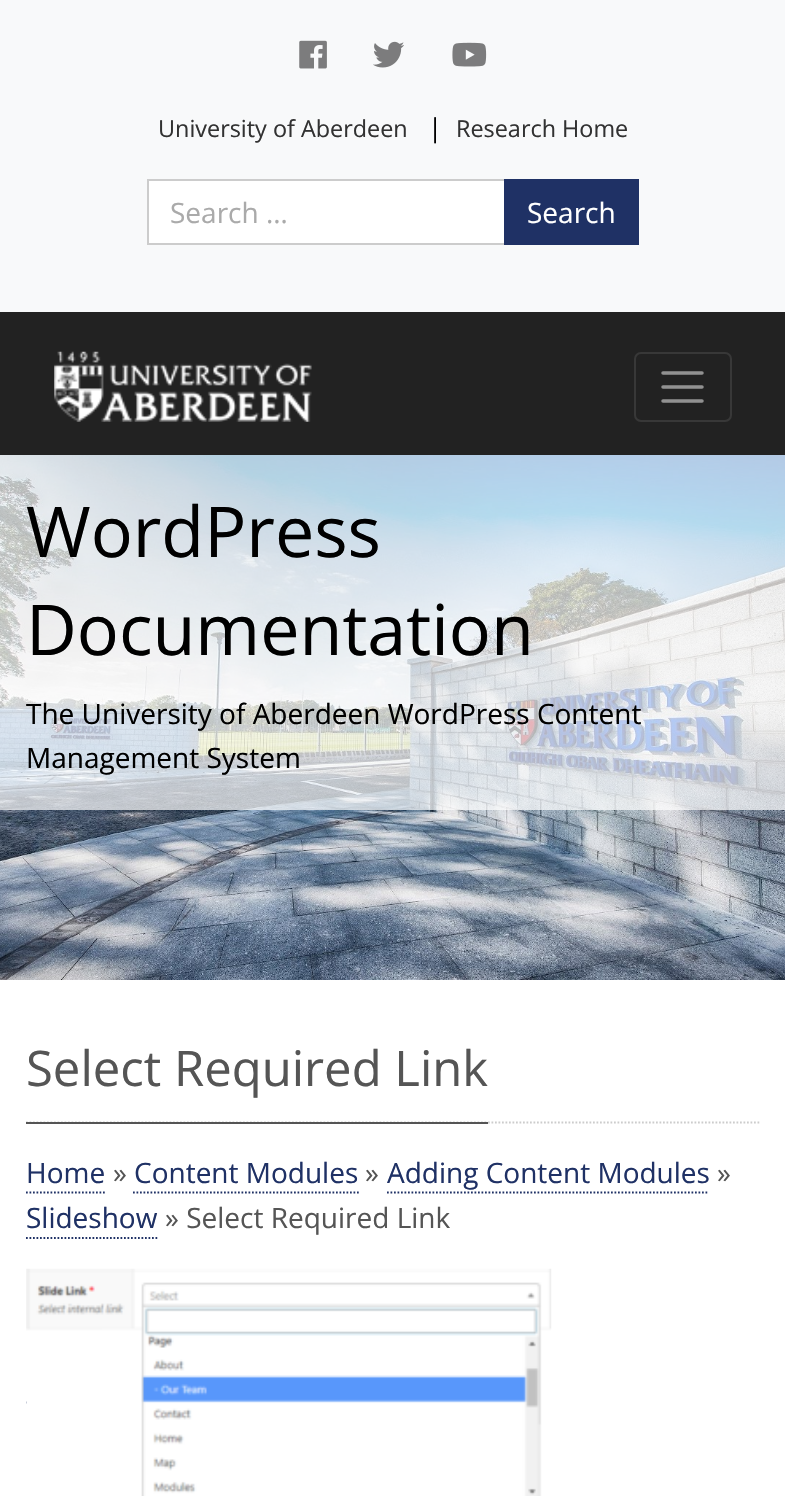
void draw(SkCanvas* canvas) {
    SkPaint paint;
    paint.setAntiAlias(true);
    canvas->clear(0xFFFFFFFF);
    paint.setColor(0xFFF8F9FA);
    canvas->drawRect(SkRect::MakeXYWH(0, 0, 785, 312), paint);
    canvas->drawImageRect(SkImages::DeferredFromEncodedData(SkData::MakeFromFileName("img1.png")), SkRect::MakeXYWH(299, 40, 28, 29), SkSamplingOptions());
    canvas->drawImageRect(SkImages::DeferredFromEncodedData(SkData::MakeFromFileName("img2.png")), SkRect::MakeXYWH(373, 41, 31, 27), SkSamplingOptions());
    canvas->drawImageRect(SkImages::DeferredFromEncodedData(SkData::MakeFromFileName("img3.png")), SkRect::MakeXYWH(452, 42, 35, 25), SkSamplingOptions());
    SkFont font1(fontMgr->matchFamilyStyle("Open Sans", SkFontStyle::Normal()), 23.4f);
    font1.setSubpixel(true);
    paint.setColor(0xFF323232);
    canvas->drawString("University of Aberdeen", 158, 137, font1, paint);
    SkFont font2(fontMgr->matchFamilyStyle("Open Sans", SkFontStyle::Normal()), 26);
    font2.setSubpixel(true);
    paint.setColor(0xFF000000);
    canvas->drawString("|", 428, 137, font2, paint);
    paint.setColor(0xFF323232);
    canvas->drawString("Research Home", 456, 137, font1, paint);
    paint.setColor(0xFFFFFFFF);
    canvas->drawRect(SkRect::MakeXYWH(148, 180, 357, 64), paint);
    paint.setStyle(SkPaint::kStroke_Style);
    paint.setStrokeWidth(2);
    paint.setColor(0xFFCCCCCC);
    canvas->drawRect(SkRect::MakeXYWH(148, 180, 357, 64), paint);
    SkFont font3(fontMgr->matchFamilyStyle("Open Sans", SkFontStyle::Normal()), 28);
    font3.setSubpixel(true);
    paint.setStyle(SkPaint::kFill_Style);
    paint.setColor(0xFFAAAAAA);
    canvas->drawString("Search …", 170, 223, font3, paint);
    paint.setColor(0xFF1F3165);
    canvas->drawRect(SkRect::MakeXYWH(504, 179, 135, 66), paint);
    paint.setColor(0xFFFFFFFF);
    canvas->drawString("Search", 527, 223, font3, paint);
    paint.setColor(0xFF222222);
    canvas->drawRect(SkRect::MakeXYWH(0, 312, 785, 143), paint);
    canvas->drawImageRect(SkImages::DeferredFromEncodedData(SkData::MakeFromFileName("img4.png")), SkRect::MakeXYWH(54, 351, 258, 71), SkSamplingOptions());
    paint.setStyle(SkPaint::kStroke_Style);
    paint.setColor(0xFF383838);
    canvas->drawRoundRect(SkRect::MakeXYWH(635, 353, 96, 68), 6, 6, paint);
    paint.setStrokeWidth(3.5f);
    paint.setStrokeCap(SkPaint::kRound_Cap);
    paint.setColor(0xFF919191);
    canvas->drawPath(SkPathBuilder().moveTo(663, 373).lineTo(702, 373).moveTo(663, 387).lineTo(702, 387).moveTo(663, 401).lineTo(702, 401).detach(), paint);
    canvas->drawImageRect(SkImages::DeferredFromEncodedData(SkData::MakeFromFileName("img5.png")), SkRect::MakeXYWH(0, 455, 785, 525), SkSamplingOptions());
    paint.setStyle(SkPaint::kFill_Style);
    paint.setColor(0xB3FFFFFF);
    canvas->drawRect(SkRect::MakeXYWH(0, 455, 785, 355), paint);
    SkFont font4(fontMgr->matchFamilyStyle("Open Sans", SkFontStyle::Normal()), 70);
    font4.setSubpixel(true);
    paint.setColor(0xFF000000);
    canvas->drawString("WordPress", 26, 557, font4, paint);
    canvas->drawString("Documentation", 26, 655, font4, paint);
    canvas->drawString("The University of Aberdeen WordPress Content", 26, 724, font3, paint);
    canvas->drawString("Management System", 26, 768, font3, paint);
    paint.setStyle(SkPaint::kStroke_Style);
    paint.setStrokeWidth(1.8f);
    paint.setStrokeCap(SkPaint::kButt_Cap);
    paint.setColor(0xFFCCCCCC);
    paint.setPathEffect(SkDashPathEffect::Make({{1.75f, 1.75f}}, 0));
    canvas->drawPath(SkPathBuilder().moveTo(26, 1122.5f).lineTo(759.5f, 1122.5f).detach(), paint);
    paint.setPathEffect(nullptr);
    paint.setStyle(SkPaint::kFill_Style);
    paint.setColor(0xFF555555);
    canvas->drawRect(SkRect::MakeXYWH(26, 1122, 462, 2), paint);
    SkFont font5(fontMgr->matchFamilyStyle("Open Sans", SkFontStyle::Normal()), 49);
    font5.setSubpixel(true);
    canvas->drawString("Select Required Link", 26, 1086, font5, paint);
    paint.setColor(0xFF1F3165);
    canvas->drawString("Home", 26, 1183, font3, paint);
    paint.setStyle(SkPaint::kStroke_Style);
    paint.setPathEffect(SkDashPathEffect::Make({{1.75f, 1.75f}}, 0));
    canvas->drawPath(SkPathBuilder().moveTo(26, 1192.5f).lineTo(105, 1192.5f).detach(), paint);
    paint.setPathEffect(nullptr);
    paint.setStyle(SkPaint::kFill_Style);
    paint.setColor(0xFF555555);
    canvas->drawString("»", 113, 1183, font3, paint);
    paint.setColor(0xFF1F3165);
    canvas->drawString("Content Modules", 134, 1183, font3, paint);
    paint.setStyle(SkPaint::kStroke_Style);
    paint.setPathEffect(SkDashPathEffect::Make({{1.75f, 1.75f}}, 0));
    canvas->drawPath(SkPathBuilder().moveTo(133, 1192.5f).lineTo(359, 1192.5f).detach(), paint);
    paint.setPathEffect(nullptr);
    paint.setStyle(SkPaint::kFill_Style);
    paint.setColor(0xFF555555);
    canvas->drawString("»", 365, 1183, font3, paint);
    paint.setColor(0xFF1F3165);
    canvas->drawString("Adding Content Modules", 387, 1183, font3, paint);
    paint.setStyle(SkPaint::kStroke_Style);
    paint.setPathEffect(SkDashPathEffect::Make({{1.75f, 1.75f}}, 0));
    canvas->drawPath(SkPathBuilder().moveTo(387, 1192.5f).lineTo(709, 1192.5f).detach(), paint);
    paint.setPathEffect(nullptr);
    paint.setStyle(SkPaint::kFill_Style);
    paint.setColor(0xFF555555);
    canvas->drawString("»", 717, 1183, font3, paint);
    paint.setColor(0xFF1F3165);
    canvas->drawString("Slideshow", 26, 1228, font3, paint);
    paint.setStyle(SkPaint::kStroke_Style);
    paint.setPathEffect(SkDashPathEffect::Make({{1.75f, 1.75f}}, 0));
    canvas->drawPath(SkPathBuilder().moveTo(26, 1238).lineTo(157.5f, 1238).detach(), paint);
    paint.setPathEffect(nullptr);
    paint.setStyle(SkPaint::kFill_Style);
    paint.setColor(0xFF555555);
    canvas->drawString("» Select Required Link", 165, 1228, font3, paint);
    paint.setStyle(SkPaint::kStroke_Style);
    paint.setColor(0xFF1F3165);
    paint.setPathEffect(SkDashPathEffect::Make({{1.75f, 1.75f}}, 0));
    canvas->drawPath(SkPathBuilder().moveTo(26, 1402.5f).lineTo(551, 1402.5f).detach(), paint);
    paint.setPathEffect(nullptr);
    canvas->drawImageRect(SkImages::DeferredFromEncodedData(SkData::MakeFromFileName("img6.png")), SkRect::MakeXYWH(26, 1268, 526, 228), SkSamplingOptions());
}
